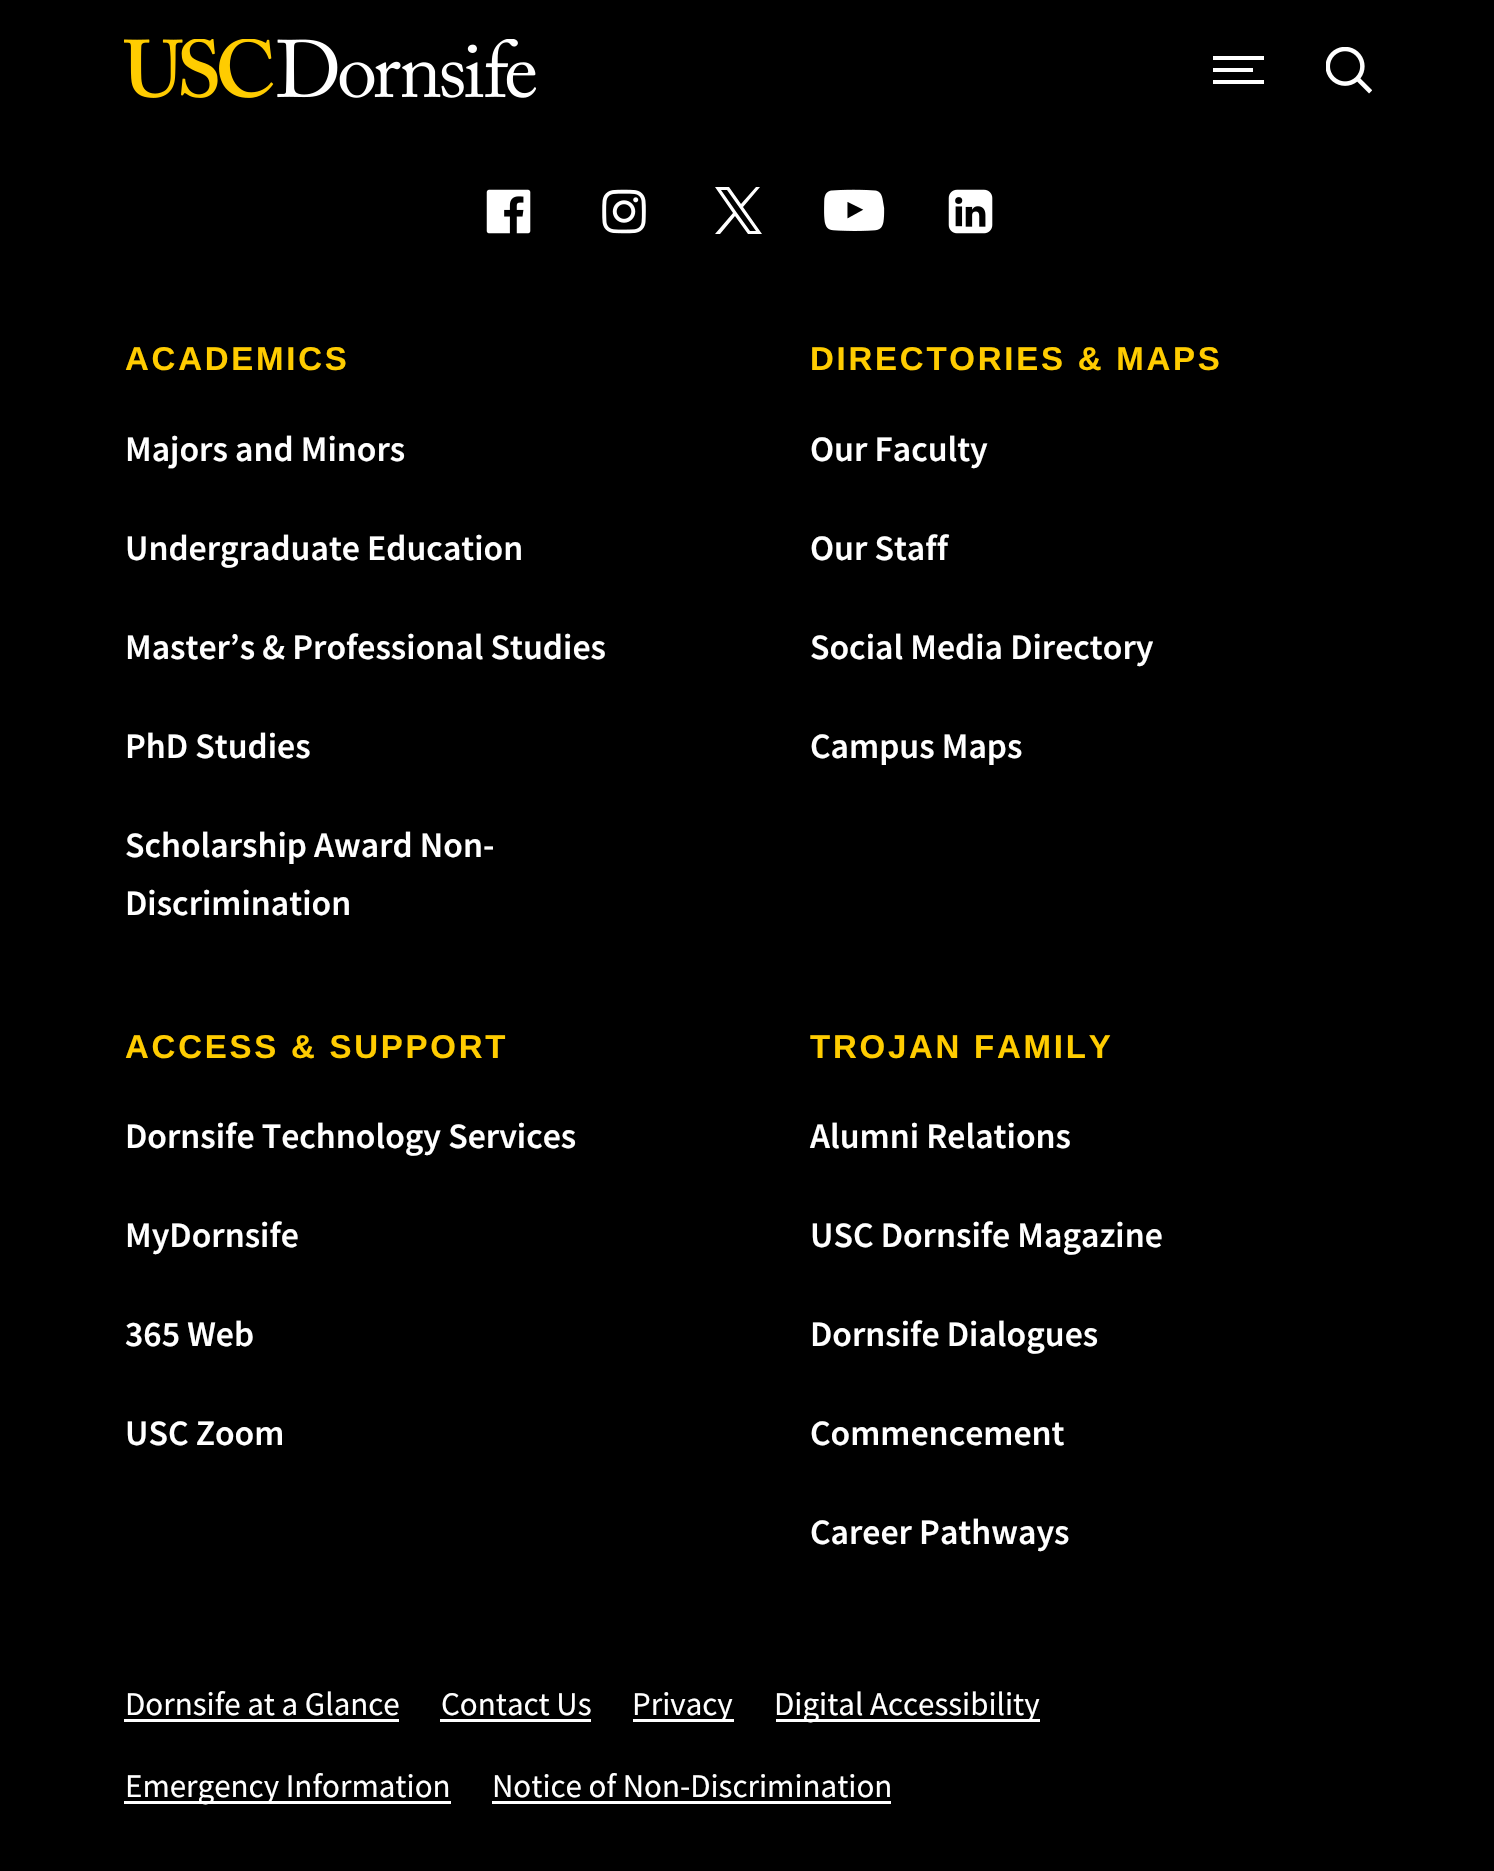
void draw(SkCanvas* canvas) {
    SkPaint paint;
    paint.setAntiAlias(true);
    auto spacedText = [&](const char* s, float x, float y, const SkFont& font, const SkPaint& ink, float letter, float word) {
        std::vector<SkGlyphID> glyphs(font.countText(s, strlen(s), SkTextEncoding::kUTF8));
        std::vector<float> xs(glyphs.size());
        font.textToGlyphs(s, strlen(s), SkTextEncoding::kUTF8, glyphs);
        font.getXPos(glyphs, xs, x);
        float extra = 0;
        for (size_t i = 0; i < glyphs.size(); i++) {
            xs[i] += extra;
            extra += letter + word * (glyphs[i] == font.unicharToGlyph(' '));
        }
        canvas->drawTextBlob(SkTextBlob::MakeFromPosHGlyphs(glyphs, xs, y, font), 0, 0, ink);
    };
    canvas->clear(0xFF000000);
    canvas->drawImageRect(SkImages::DeferredFromEncodedData(SkData::MakeFromFileName("img1.png")), SkRect::MakeXYWH(124, 39, 412, 59), SkSamplingOptions());
    paint.setColor(0xFFFFFFFF);
    canvas->drawPath(SkPathBuilder(SkPathFillType::kEvenOdd).moveTo(1264, 80).lineTo(1264, 84).lineTo(1213, 84).lineTo(1213, 80).close().moveTo(1253, 68).lineTo(1253, 72).lineTo(1213, 72).lineTo(1213, 68).close().moveTo(1264, 56).lineTo(1264, 60).lineTo(1213, 60).lineTo(1213, 56).close().detach(), paint);
    canvas->drawImageRect(SkImages::DeferredFromEncodedData(SkData::MakeFromFileName("img2.png")), SkRect::MakeXYWH(1326, 47, 46, 47), SkSamplingOptions());
    canvas->drawImageRect(SkImages::DeferredFromEncodedData(SkData::MakeFromFileName("img3.png")), SkRect::MakeXYWH(486, 189, 45, 45), SkSamplingOptions());
    canvas->drawImageRect(SkImages::DeferredFromEncodedData(SkData::MakeFromFileName("img4.png")), SkRect::MakeXYWH(602, 189, 44, 45), SkSamplingOptions());
    canvas->drawPath(SkPathBuilder(SkPathFillType::kEvenOdd).moveTo(737, 213).lineTo(721, 190).lineTo(727, 190).lineTo(756, 231).lineTo(750, 231).close().moveTo(743, 207).lineTo(760, 187).lineTo(756, 187).lineTo(741, 204).lineTo(729, 187).lineTo(715, 187).lineTo(733, 213).lineTo(715, 234).lineTo(720, 234).lineTo(735, 216).lineTo(748, 234).lineTo(762, 234).close().detach(), paint);
    canvas->drawImageRect(SkImages::DeferredFromEncodedData(SkData::MakeFromFileName("img5.png")), SkRect::MakeXYWH(824, 189, 61, 42), SkSamplingOptions());
    canvas->drawImageRect(SkImages::DeferredFromEncodedData(SkData::MakeFromFileName("img6.png")), SkRect::MakeXYWH(948, 189, 45, 45), SkSamplingOptions());
    SkFont font1(fontMgr->matchFamilyStyle("Liberation Sans", SkFontStyle::Bold()), 33);
    font1.setSubpixel(true);
    paint.setColor(0xFFFFCC00);
    spacedText("ACADEMICS", 125, 370, font1, paint, 2.75f, 0);
    SkFont font2(fontMgr->matchFamilyStyle("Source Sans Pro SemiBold", SkFontStyle(600, SkFontStyle::kNormal_Width, SkFontStyle::kUpright_Slant)), 35.75f);
    font2.setSubpixel(true);
    paint.setColor(0xFFFFFFFF);
    canvas->drawString("Majors and Minors", 125, 461, font2, paint);
    canvas->drawString("Undergraduate Education", 125, 560, font2, paint);
    canvas->drawString("Master’s & Professional Studies", 125, 659, font2, paint);
    canvas->drawString("PhD Studies", 125, 758, font2, paint);
    canvas->drawString("Scholarship Award Non-", 125, 857, font2, paint);
    canvas->drawString("Discrimination", 125, 915, font2, paint);
    paint.setColor(0xFFFFCC00);
    spacedText("DIRECTORIES & MAPS", 810, 370, font1, paint, 2.75f, 0);
    paint.setColor(0xFFFFFFFF);
    canvas->drawString("Our Faculty", 810, 461, font2, paint);
    canvas->drawString("Our Staff", 810, 560, font2, paint);
    canvas->drawString("Social Media Directory", 810, 659, font2, paint);
    canvas->drawString("Campus Maps", 810, 758, font2, paint);
    paint.setColor(0xFFFFCC00);
    spacedText("ACCESS & SUPPORT", 125, 1058, font1, paint, 2.75f, 0);
    paint.setColor(0xFFFFFFFF);
    canvas->drawString("Dornsife Technology Services", 125, 1148, font2, paint);
    canvas->drawString("MyDornsife", 125, 1247, font2, paint);
    canvas->drawString("365 Web", 125, 1346, font2, paint);
    canvas->drawString("USC Zoom", 125, 1445, font2, paint);
    paint.setColor(0xFFFFCC00);
    spacedText("TROJAN FAMILY", 810, 1058, font1, paint, 2.75f, 0);
    paint.setColor(0xFFFFFFFF);
    canvas->drawString("Alumni Relations", 810, 1148, font2, paint);
    canvas->drawString("USC Dornsife Magazine", 810, 1247, font2, paint);
    canvas->drawString("Dornsife Dialogues", 810, 1346, font2, paint);
    canvas->drawString("Commencement", 810, 1445, font2, paint);
    canvas->drawString("Career Pathways", 810, 1544, font2, paint);
    SkFont font3(fontMgr->matchFamilyStyle("Source Sans Pro", SkFontStyle::Normal()), 33);
    font3.setSubpixel(true);
    canvas->drawString("Dornsife at a Glance", 125, 1715, font3, paint);
    canvas->drawRect(SkRect::MakeXYWH(124, 1719, 275, 3), paint);
    canvas->drawString("Contact Us", 441, 1715, font3, paint);
    canvas->drawRect(SkRect::MakeXYWH(440, 1719, 151, 3), paint);
    canvas->drawRect(SkRect::MakeXYWH(633, 1719, 101, 3), paint);
    canvas->drawString("Privacy", 632, 1715, font3, paint);
    canvas->drawRect(SkRect::MakeXYWH(776, 1719, 264, 3), paint);
    canvas->drawString("Digital Accessibility", 774, 1715, font3, paint);
    canvas->drawRect(SkRect::MakeXYWH(124, 1801, 327, 3), paint);
    canvas->drawString("Emergency Information", 125, 1797, font3, paint);
    canvas->drawString("Notice of Non-Discrimination", 492, 1797, font3, paint);
    canvas->drawRect(SkRect::MakeXYWH(492, 1801, 399, 3), paint);
}
